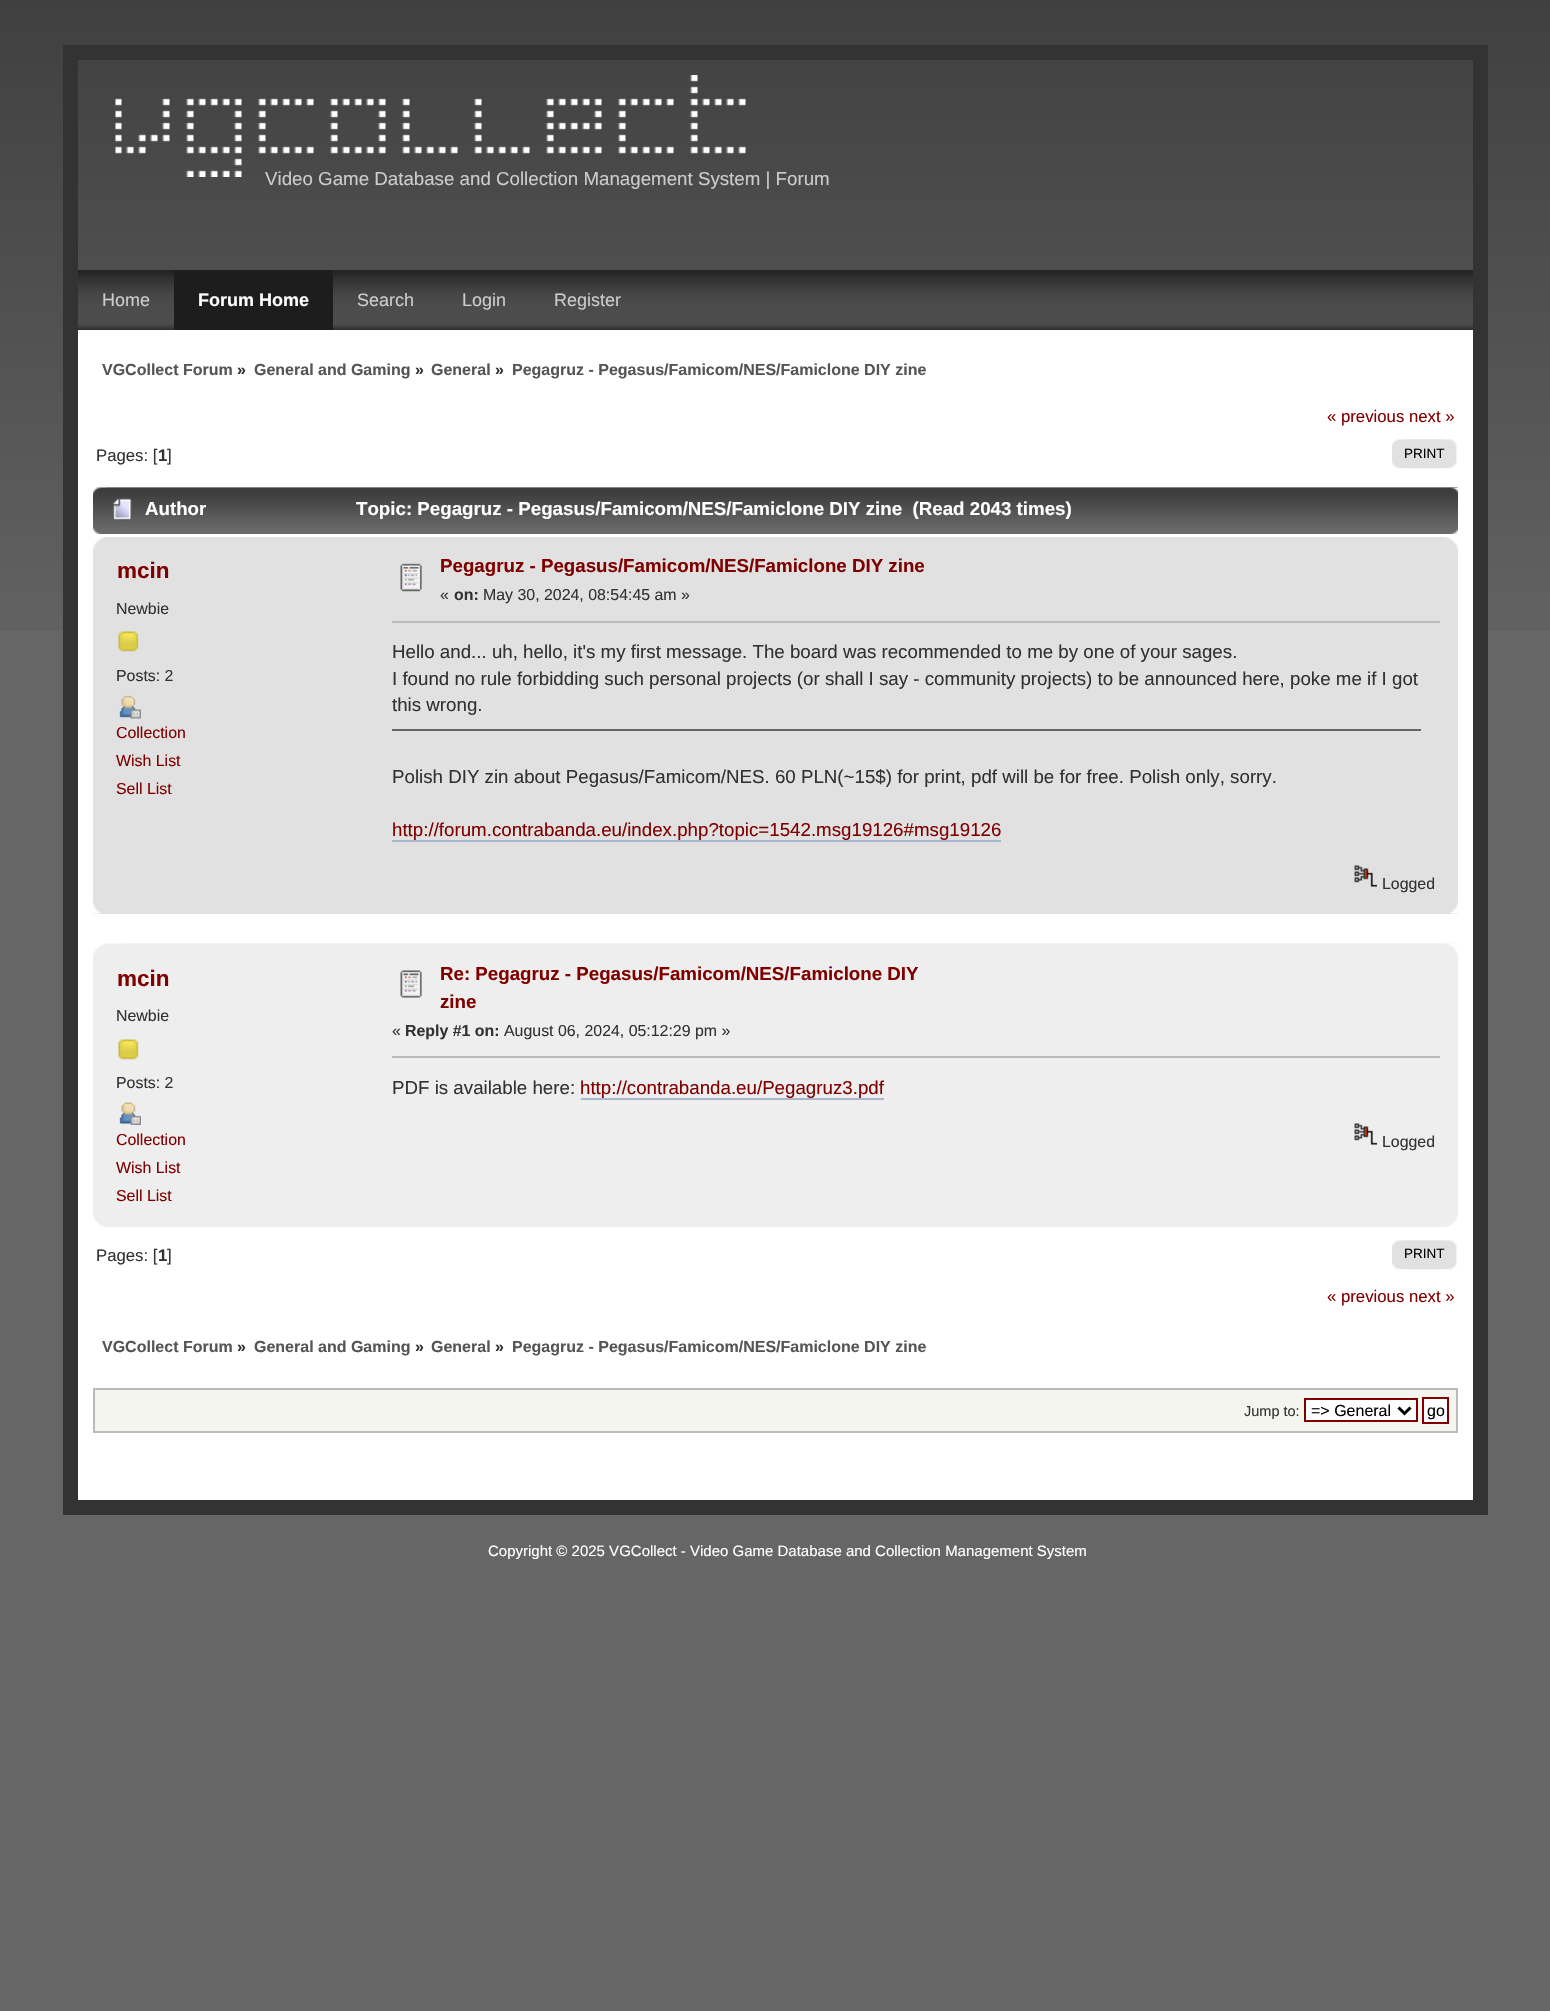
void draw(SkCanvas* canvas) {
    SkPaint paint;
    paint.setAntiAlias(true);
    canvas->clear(0xFF666666);
    canvas->drawImageRect(SkImages::DeferredFromEncodedData(SkData::MakeFromFileName("img1.png")), SkRect::MakeXYWH(0, 0, 1550, 631), SkSamplingOptions());
    paint.setStyle(SkPaint::kStroke_Style);
    paint.setStrokeWidth(15);
    paint.setColor(0xFF333333);
    canvas->drawRect(SkRect::MakeXYWH(70.5f, 52.5f, 1410, 1455), paint);
    canvas->drawImageRect(SkImages::DeferredFromEncodedData(SkData::MakeFromFileName("img2.png")), SkRect::MakeXYWH(115, 75, 631, 102), SkSamplingOptions());
    SkFont font1(fontMgr->matchFamilyStyle("Liberation Sans", SkFontStyle::Normal()), 18.72f);
    font1.setSubpixel(true);
    paint.setStyle(SkPaint::kFill_Style);
    paint.setColor(0xFFCCCCCC);
    canvas->drawString("Video Game Database and Collection Management System | Forum", 265, 185, font1, paint);
    canvas->drawImageRect(SkImages::DeferredFromEncodedData(SkData::MakeFromFileName("img3.png")), SkRect::MakeXYWH(78, 270, 1395, 60), SkSamplingOptions());
    SkFont font2(fontMgr->matchFamilyStyle("Liberation Sans", SkFontStyle::Normal()), 18);
    font2.setSubpixel(true);
    canvas->drawString("Home", 102, 306, font2, paint);
    paint.setColor(0xFF1D1D1D);
    canvas->drawRect(SkRect::MakeXYWH(174, 270, 159, 60), paint);
    SkFont font3(fontMgr->matchFamilyStyle("Liberation Sans", SkFontStyle::Bold()), 18);
    font3.setSubpixel(true);
    paint.setColor(0xFFFFFFFF);
    canvas->drawString("Forum Home", 198, 306, font3, paint);
    paint.setColor(0xFFCCCCCC);
    canvas->drawString("Search", 357, 306, font2, paint);
    canvas->drawString("Login", 462, 306, font2, paint);
    canvas->drawString("Register", 554, 306, font2, paint);
    paint.setColor(0xFFFFFFFF);
    canvas->drawRect(SkRect::MakeXYWH(78, 330, 1395, 1170), paint);
    SkFont font4(fontMgr->matchFamilyStyle("Liberation Sans", SkFontStyle::Bold()), 16);
    font4.setSubpixel(true);
    paint.setColor(0xFF555555);
    canvas->drawString("VGCollect Forum", 102, 375, font4, paint);
    paint.setColor(0xFF323232);
    canvas->drawString("»", 237, 375, font4, paint);
    paint.setColor(0xFF555555);
    canvas->drawString("General and Gaming", 254, 375, font4, paint);
    paint.setColor(0xFF323232);
    canvas->drawString("»", 415, 375, font4, paint);
    paint.setColor(0xFF555555);
    canvas->drawString("General", 431, 375, font4, paint);
    paint.setColor(0xFF323232);
    canvas->drawString("»", 495, 375, font4, paint);
    paint.setColor(0xFF555555);
    canvas->drawString("Pegagruz - Pegasus/Famicom/NES/Famiclone DIY zine", 512, 375, font4, paint);
    SkFont font5(fontMgr->matchFamilyStyle("Liberation Sans", SkFontStyle::Normal()), 16.75f);
    font5.setSubpixel(true);
    paint.setColor(0xFF800000);
    canvas->drawString("« previous next »", 1327, 422, font5, paint);
    paint.setColor(0xFF323232);
    canvas->drawString("Pages: [", 96, 461, font5, paint);
    SkFont font6(fontMgr->matchFamilyStyle("Liberation Sans", SkFontStyle::Bold()), 16.75f);
    font6.setSubpixel(true);
    canvas->drawString("1", 158, 461, font6, paint);
    canvas->drawString("]", 167, 461, font5, paint);
    canvas->drawImageRect(SkImages::DeferredFromEncodedData(SkData::MakeFromFileName("img4.png")), SkRect::MakeXYWH(1392, 439, 53, 30), SkSamplingOptions());
    canvas->drawImageRect(SkImages::DeferredFromEncodedData(SkData::MakeFromFileName("img5.png")), SkRect::MakeXYWH(1404, 439, 53, 30), SkSamplingOptions());
    SkFont font7(fontMgr->matchFamilyStyle("Liberation Sans", SkFontStyle::Normal()), 13.5f);
    font7.setSubpixel(true);
    paint.setColor(0xFF000000);
    canvas->drawString("PRINT", 1404, 458, font7, paint);
    canvas->drawImageRect(SkImages::DeferredFromEncodedData(SkData::MakeFromFileName("img6.png")), SkRect::MakeXYWH(93, 487, 1365, 47), SkSamplingOptions());
    canvas->drawImageRect(SkImages::DeferredFromEncodedData(SkData::MakeFromFileName("img7.png")), SkRect::MakeXYWH(106, 487, 1352, 47), SkSamplingOptions());
    canvas->drawImageRect(SkImages::DeferredFromEncodedData(SkData::MakeFromFileName("img8.png")), SkRect::MakeXYWH(112, 498, 20, 23), SkSamplingOptions());
    SkFont font8(fontMgr->matchFamilyStyle("Liberation Sans", SkFontStyle::Bold()), 18.72f);
    font8.setSubpixel(true);
    paint.setColor(0xFFFFFFFF);
    canvas->drawString("Author", 145, 515, font8, paint);
    canvas->drawString("Topic: Pegagruz - Pegasus/Famicom/NES/Famiclone DIY zine  (Read 2043 times)", 356, 515, font8, paint);
    paint.setColor(0xFFE1E1E1);
    canvas->drawRect(SkRect::MakeXYWH(93, 537, 1365, 377), paint);
    canvas->drawImageRect(SkImages::DeferredFromEncodedData(SkData::MakeFromFileName("img9.png")), SkRect::MakeXYWH(93, 537, 13, 13), SkSamplingOptions());
    canvas->drawImageRect(SkImages::DeferredFromEncodedData(SkData::MakeFromFileName("img10.png")), SkRect::MakeXYWH(1445, 537, 13, 13), SkSamplingOptions());
    SkFont font9(fontMgr->matchFamilyStyle("Liberation Sans", SkFontStyle::Bold()), 22.5f);
    font9.setSubpixel(true);
    paint.setColor(0xFF800000);
    canvas->drawString("mcin", 117, 578, font9, paint);
    SkFont font10(fontMgr->matchFamilyStyle("Liberation Sans", SkFontStyle::Normal()), 15.9f);
    font10.setSubpixel(true);
    paint.setColor(0xFF323232);
    canvas->drawString("Newbie", 116, 614, font10, paint);
    canvas->drawImageRect(SkImages::DeferredFromEncodedData(SkData::MakeFromFileName("img11.png")), SkRect::MakeXYWH(118, 631, 21, 21), SkSamplingOptions());
    canvas->drawString("Posts: 2", 116, 681, font10, paint);
    canvas->drawImageRect(SkImages::DeferredFromEncodedData(SkData::MakeFromFileName("img12.png")), SkRect::MakeXYWH(119, 695, 22, 24), SkSamplingOptions());
    paint.setColor(0xFF800000);
    canvas->drawString("Collection", 116, 738, font10, paint);
    canvas->drawString("Wish List", 116, 766, font10, paint);
    canvas->drawString("Sell List", 116, 794, font10, paint);
    canvas->drawImageRect(SkImages::DeferredFromEncodedData(SkData::MakeFromFileName("img13.png")), SkRect::MakeXYWH(400, 563, 22, 29), SkSamplingOptions());
    canvas->drawString("Pegagruz - Pegasus/Famicom/NES/Famiclone DIY zine", 440, 572, font8, paint);
    paint.setColor(0xFF323232);
    canvas->drawString("«", 440, 600, font10, paint);
    SkFont font11(fontMgr->matchFamilyStyle("Liberation Sans", SkFontStyle::Bold()), 15.9f);
    font11.setSubpixel(true);
    canvas->drawString("on:", 454, 600, font11, paint);
    canvas->drawString("May 30, 2024, 08:54:45 am »", 483, 600, font10, paint);
    paint.setColor(0xFFBBBBBB);
    canvas->drawRect(SkRect::MakeXYWH(392, 621, 1048, 2), paint);
    paint.setColor(0xFF323232);
    canvas->drawString("Hello and... uh, hello, it's my first message. The board was recommended to me by one of your sages.", 392, 658, font1, paint);
    canvas->drawString("I found no rule forbidding such personal projects (or shall I say - community projects) to be announced here, poke me if I got", 392, 685, font1, paint);
    canvas->drawString("this wrong.", 392, 711, font1, paint);
    paint.setColor(0xFF666666);
    canvas->drawRect(SkRect::MakeXYWH(392, 729, 1029, 2), paint);
    paint.setColor(0xFF323232);
    canvas->drawString("Polish DIY zin about Pegasus/Famicom/NES. 60 PLN(~15$) for print, pdf will be for free. Polish only, sorry.", 392, 783, font1, paint);
    paint.setColor(0xFF800000);
    canvas->drawString("http://forum.contrabanda.eu/index.php?topic=1542.msg19126#msg19126", 392, 836, font1, paint);
    paint.setColor(0xFFA8B6CF);
    canvas->drawRect(SkRect::MakeXYWH(392, 840, 609, 2), paint);
    canvas->drawImageRect(SkImages::DeferredFromEncodedData(SkData::MakeFromFileName("img14.png")), SkRect::MakeXYWH(1354, 865, 23, 22), SkSamplingOptions());
    paint.setColor(0xFF323232);
    canvas->drawString("Logged", 1382, 889, font10, paint);
    canvas->drawImageRect(SkImages::DeferredFromEncodedData(SkData::MakeFromFileName("img15.png")), SkRect::MakeXYWH(93, 902, 8, 12), SkSamplingOptions());
    canvas->drawImageRect(SkImages::DeferredFromEncodedData(SkData::MakeFromFileName("img16.png")), SkRect::MakeXYWH(1450, 902, 8, 12), SkSamplingOptions());
    paint.setColor(0xFFEEEEEE);
    canvas->drawRect(SkRect::MakeXYWH(93, 955, 1365, 272), paint);
    canvas->drawImageRect(SkImages::DeferredFromEncodedData(SkData::MakeFromFileName("img17.png")), SkRect::MakeXYWH(93, 943, 1365, 12), SkSamplingOptions());
    canvas->drawImageRect(SkImages::DeferredFromEncodedData(SkData::MakeFromFileName("img18.png")), SkRect::MakeXYWH(123, 943, 1335, 12), SkSamplingOptions());
    paint.setColor(0xFF800000);
    canvas->drawString("mcin", 117, 986, font9, paint);
    paint.setColor(0xFF323232);
    canvas->drawString("Newbie", 116, 1021, font10, paint);
    canvas->drawImageRect(SkImages::DeferredFromEncodedData(SkData::MakeFromFileName("img19.png")), SkRect::MakeXYWH(118, 1039, 21, 21), SkSamplingOptions());
    canvas->drawString("Posts: 2", 116, 1088, font10, paint);
    canvas->drawImageRect(SkImages::DeferredFromEncodedData(SkData::MakeFromFileName("img20.png")), SkRect::MakeXYWH(119, 1102, 22, 23), SkSamplingOptions());
    paint.setColor(0xFF800000);
    canvas->drawString("Collection", 116, 1145, font10, paint);
    canvas->drawString("Wish List", 116, 1173, font10, paint);
    canvas->drawString("Sell List", 116, 1201, font10, paint);
    canvas->drawImageRect(SkImages::DeferredFromEncodedData(SkData::MakeFromFileName("img21.png")), SkRect::MakeXYWH(400, 970, 22, 28), SkSamplingOptions());
    canvas->drawString("Re: Pegagruz - Pegasus/Famicom/NES/Famiclone DIY", 440, 980, font8, paint);
    canvas->drawString("zine", 440, 1008, font8, paint);
    paint.setColor(0xFF323232);
    canvas->drawString("«", 392, 1036, font10, paint);
    canvas->drawString("Reply #1 on:", 405, 1036, font11, paint);
    canvas->drawString("August 06, 2024, 05:12:29 pm »", 504, 1036, font10, paint);
    paint.setColor(0xFFBBBBBB);
    canvas->drawRect(SkRect::MakeXYWH(392, 1056, 1048, 2), paint);
    paint.setColor(0xFF323232);
    canvas->drawString("PDF is available here:", 392, 1094, font1, paint);
    paint.setColor(0xFF800000);
    canvas->drawString("http://contrabanda.eu/Pegagruz3.pdf", 580, 1094, font1, paint);
    paint.setColor(0xFFA8B6CF);
    canvas->drawRect(SkRect::MakeXYWH(581, 1098, 303, 2), paint);
    canvas->drawImageRect(SkImages::DeferredFromEncodedData(SkData::MakeFromFileName("img22.png")), SkRect::MakeXYWH(1354, 1123, 23, 22), SkSamplingOptions());
    paint.setColor(0xFF323232);
    canvas->drawString("Logged", 1382, 1147, font10, paint);
    canvas->drawImageRect(SkImages::DeferredFromEncodedData(SkData::MakeFromFileName("img23.png")), SkRect::MakeXYWH(93, 1215, 12, 12), SkSamplingOptions());
    canvas->drawImageRect(SkImages::DeferredFromEncodedData(SkData::MakeFromFileName("img24.png")), SkRect::MakeXYWH(1446, 1215, 12, 12), SkSamplingOptions());
    canvas->drawString("Pages: [", 96, 1261, font5, paint);
    canvas->drawString("1", 158, 1261, font6, paint);
    canvas->drawString("]", 167, 1261, font5, paint);
    canvas->drawImageRect(SkImages::DeferredFromEncodedData(SkData::MakeFromFileName("img4.png")), SkRect::MakeXYWH(1392, 1240, 53, 30), SkSamplingOptions());
    canvas->drawImageRect(SkImages::DeferredFromEncodedData(SkData::MakeFromFileName("img5.png")), SkRect::MakeXYWH(1404, 1240, 53, 30), SkSamplingOptions());
    paint.setColor(0xFF000000);
    canvas->drawString("PRINT", 1404, 1258, font7, paint);
    paint.setColor(0xFF800000);
    canvas->drawString("« previous next »", 1327, 1302, font5, paint);
    paint.setColor(0xFF555555);
    canvas->drawString("VGCollect Forum", 102, 1352, font4, paint);
    paint.setColor(0xFF323232);
    canvas->drawString("»", 237, 1352, font4, paint);
    paint.setColor(0xFF555555);
    canvas->drawString("General and Gaming", 254, 1352, font4, paint);
    paint.setColor(0xFF323232);
    canvas->drawString("»", 415, 1352, font4, paint);
    paint.setColor(0xFF555555);
    canvas->drawString("General", 431, 1352, font4, paint);
    paint.setColor(0xFF323232);
    canvas->drawString("»", 495, 1352, font4, paint);
    paint.setColor(0xFF555555);
    canvas->drawString("Pegagruz - Pegasus/Famicom/NES/Famiclone DIY zine", 512, 1352, font4, paint);
    paint.setColor(0xFFF5F5F0);
    canvas->drawRect(SkRect::MakeXYWH(94, 1389, 1363, 43), paint);
    paint.setStyle(SkPaint::kStroke_Style);
    paint.setStrokeWidth(2);
    paint.setColor(0xFFBBBBBB);
    canvas->drawRect(SkRect::MakeXYWH(94, 1389, 1363, 43), paint);
    SkFont font12(fontMgr->matchFamilyStyle("Liberation Sans", SkFontStyle::Normal()), 14.5f);
    font12.setSubpixel(true);
    paint.setStyle(SkPaint::kFill_Style);
    paint.setColor(0xFF323232);
    canvas->drawString("Jump to:", 1244, 1416, font12, paint);
    paint.setColor(0xFFFFFFFF);
    canvas->drawRect(SkRect::MakeXYWH(1305, 1399, 112, 22), paint);
    paint.setStyle(SkPaint::kStroke_Style);
    paint.setColor(0xFF800000);
    canvas->drawRect(SkRect::MakeXYWH(1305, 1399, 112, 22), paint);
    paint.setStrokeWidth(3);
    paint.setColor(0xFF000000);
    canvas->drawPath(SkPathBuilder().moveTo(1398.5f, 1407.5f).lineTo(1404.5f, 1413.5f).lineTo(1410.5f, 1407.5f).detach(), paint);
    SkFont font13(fontMgr->matchFamilyStyle("Liberation Sans", SkFontStyle::Normal()), 16);
    font13.setSubpixel(true);
    paint.setStyle(SkPaint::kFill_Style);
    canvas->drawString("=> General", 1311, 1416, font13, paint);
    paint.setColor(0xFFFFFFFF);
    canvas->drawRect(SkRect::MakeXYWH(1423, 1398, 25, 25), paint);
    paint.setStyle(SkPaint::kStroke_Style);
    paint.setStrokeWidth(2);
    paint.setColor(0xFF800000);
    canvas->drawRect(SkRect::MakeXYWH(1423, 1398, 25, 25), paint);
    paint.setStyle(SkPaint::kFill_Style);
    paint.setColor(0xFF000000);
    canvas->drawString("go", 1427, 1416, font13, paint);
    SkFont font14(fontMgr->matchFamilyStyle("Liberation Sans", SkFontStyle::Normal()), 15);
    font14.setSubpixel(true);
    paint.setColor(0xFFFFFFFF);
    canvas->drawString("Copyright © 2025 VGCollect - Video Game Database and Collection Management System", 488, 1556, font14, paint);
}
